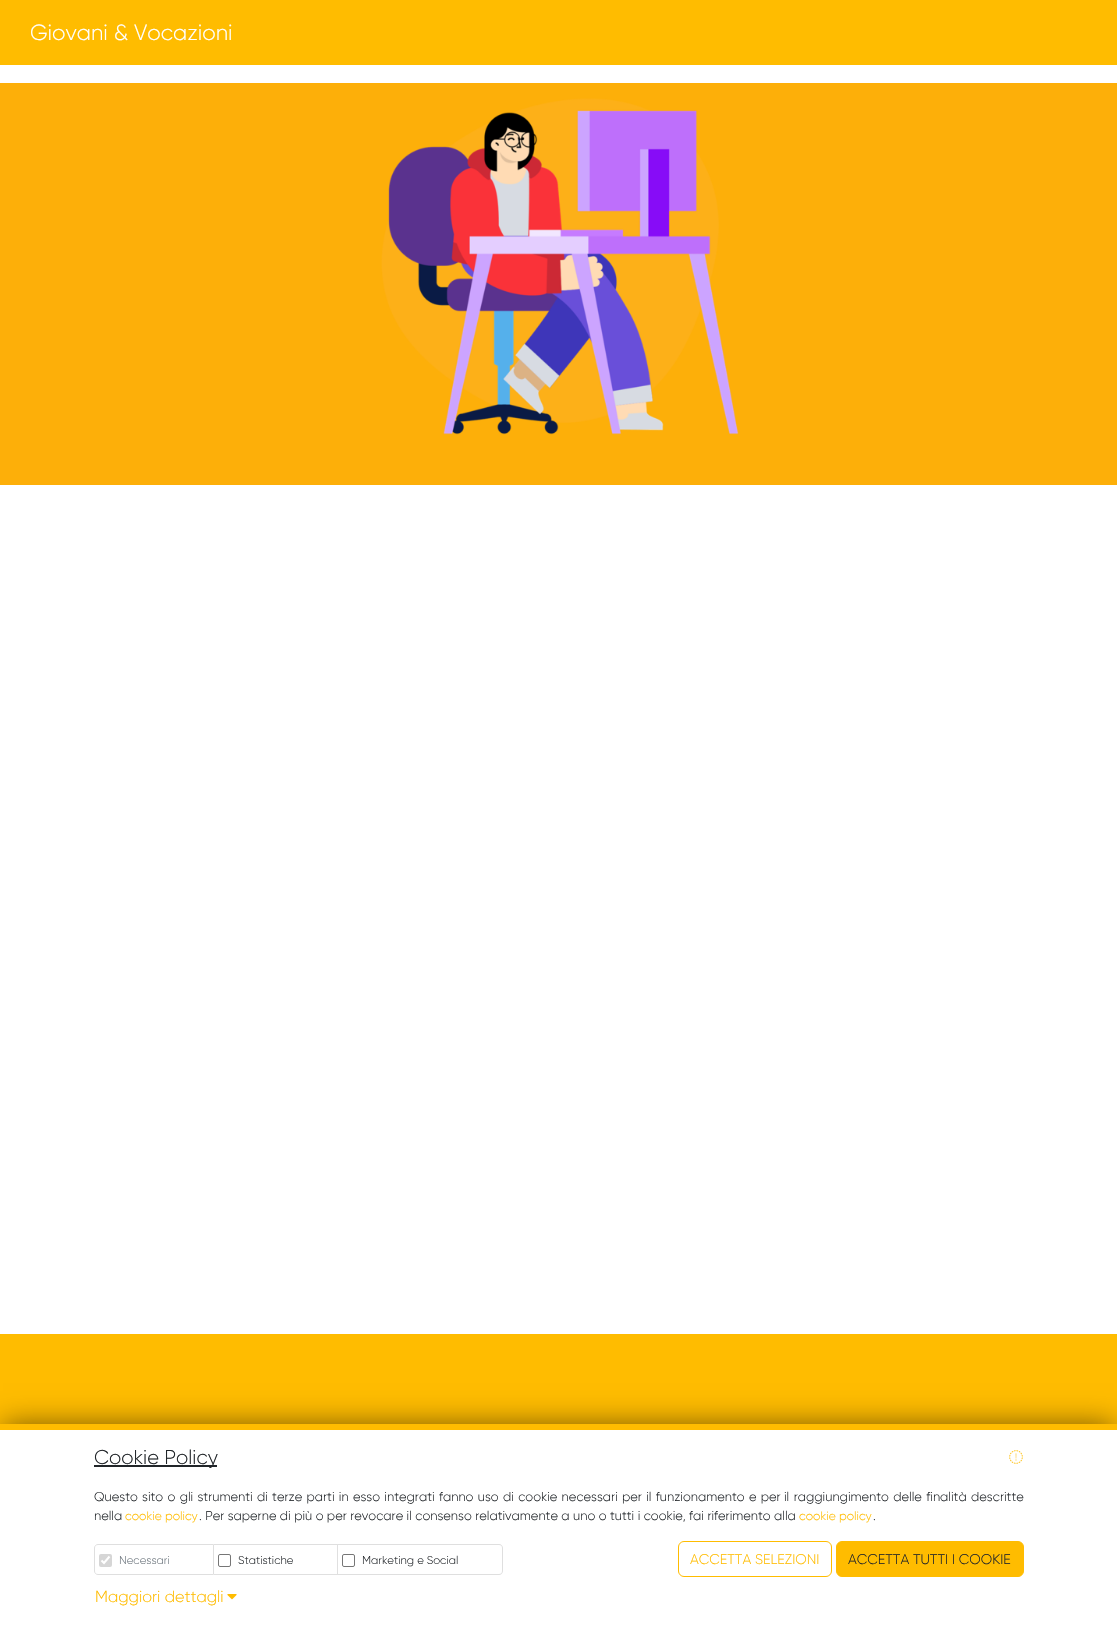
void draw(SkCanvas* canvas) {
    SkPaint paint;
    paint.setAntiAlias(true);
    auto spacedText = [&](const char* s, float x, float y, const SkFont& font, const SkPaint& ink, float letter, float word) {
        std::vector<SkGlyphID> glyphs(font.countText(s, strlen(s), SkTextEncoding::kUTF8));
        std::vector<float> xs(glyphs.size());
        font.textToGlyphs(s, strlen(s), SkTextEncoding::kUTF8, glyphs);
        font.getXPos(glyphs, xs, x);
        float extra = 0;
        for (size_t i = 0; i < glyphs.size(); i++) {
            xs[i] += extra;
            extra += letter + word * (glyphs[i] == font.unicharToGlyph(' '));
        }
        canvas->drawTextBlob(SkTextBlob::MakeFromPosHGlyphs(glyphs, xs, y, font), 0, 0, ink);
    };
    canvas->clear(0xFFFFFFFF);
    paint.setColor(0xFFFFBC00);
    canvas->drawRect(SkRect::MakeXYWH(0, 0, 1117, 65), paint);
    SkFont font1(fontMgr->matchFamilyStyle("Gilroy", SkFontStyle(300, SkFontStyle::kNormal_Width, SkFontStyle::kUpright_Slant)), 22);
    font1.setSubpixel(true);
    paint.setColor(0xFFFFFFFF);
    canvas->drawString("Giovani & Vocazioni", 30, 40, font1, paint);
    paint.setColor(0xFFFDAF09);
    canvas->drawRect(SkRect::MakeXYWH(0, 83, 1117, 402), paint);
    canvas->drawImageRect(SkImages::DeferredFromEncodedData(SkData::MakeFromFileName("img1.png")), SkRect::MakeXYWH(381, 98, 358, 337), SkSamplingOptions());
    paint.setColor(0xFFFFBC00);
    canvas->drawRect(SkRect::MakeXYWH(0, 1334, 1117, 90), paint);
    paint.setColor(0x8C000000);
    paint.setMaskFilter(SkMaskFilter::MakeBlur(kNormal_SkBlurStyle, 14));
    canvas->drawRect(SkRect::MakeXYWH(3, 1425, 1111, 202), paint);
    paint.setMaskFilter(nullptr);
    paint.setColor(0xFFFFFFFF);
    canvas->drawRect(SkRect::MakeXYWH(0, 1430, 1117, 202), paint);
    paint.setColor(0xFFFFBC00);
    canvas->drawRect(SkRect::MakeXYWH(0, 1424, 1117, 6), paint);
    paint.setColor(0xFF212529);
    canvas->drawRect(SkRect::MakeXYWH(94, 1465, 123, 2), paint);
    SkFont font2(fontMgr->matchFamilyStyle("Gilroy", SkFontStyle(300, SkFontStyle::kNormal_Width, SkFontStyle::kUpright_Slant)), 20);
    font2.setSubpixel(true);
    canvas->drawString("Cookie Policy", 94, 1464, font2, paint);
    canvas->drawImageRect(SkImages::DeferredFromEncodedData(SkData::MakeFromFileName("img2.png")), SkRect::MakeXYWH(1009, 1450, 14, 14), SkSamplingOptions());
    SkFont font3(fontMgr->matchFamilyStyle("Gilroy", SkFontStyle(300, SkFontStyle::kNormal_Width, SkFontStyle::kUpright_Slant)), 12.8f);
    font3.setSubpixel(true);
    spacedText("Questo sito o gli strumenti di terze parti in esso integrati fanno uso di cookie necessari per il funzionamento e per", 94, 1501, font3, paint, 0, 0.9f);
    spacedText("il raggiungimento delle finalità descritte", 784, 1501, font3, paint, 0, 1);
    canvas->drawString("nella", 94, 1520, font3, paint);
    SkFont font4(fontMgr->matchFamilyStyle("Gilroy", SkFontStyle(300, SkFontStyle::kNormal_Width, SkFontStyle::kUpright_Slant)), 12);
    font4.setSubpixel(true);
    paint.setColor(0xFFFFBC00);
    canvas->drawString("cookie policy", 125, 1520, font4, paint);
    paint.setColor(0xFF212529);
    canvas->drawString(". Per saperne di più o per revocare il consenso relativamente a uno o tutti i cookie, fai riferimento alla", 199, 1520, font3, paint);
    paint.setColor(0xFFFFBC00);
    canvas->drawString("cookie policy", 799, 1520, font4, paint);
    paint.setColor(0xFF212529);
    canvas->drawString(".", 873, 1520, font3, paint);
    paint.setStyle(SkPaint::kStroke_Style);
    paint.setStrokeWidth(1);
    paint.setColor(0xFFDFDFDF);
    canvas->drawPath(SkPathBuilder().moveTo(98, 1544.5f).lineTo(213.5f, 1544.5f).lineTo(213.5f, 1574.5f).lineTo(98, 1574.5f).cubicTo(96, 1574.5f, 94.5f, 1573, 94.5f, 1571).lineTo(94.5f, 1548).cubicTo(94.5f, 1546, 96, 1544.5f, 98, 1544.5f).close().detach(), paint);
    paint.setStyle(SkPaint::kFill_Style);
    paint.setColor(0xFFD6D6D6);
    canvas->drawRoundRect(SkRect::MakeXYWH(99, 1554, 13, 13), 2, 2, paint);
    paint.setStyle(SkPaint::kStroke_Style);
    paint.setStrokeWidth(2.1f);
    paint.setColor(0xFFFFFFFF);
    canvas->drawPath(SkPathBuilder().moveTo(101.5f, 1560.5f).lineTo(104, 1563).lineTo(109.5f, 1556.5f).detach(), paint);
    SkFont font5(fontMgr->matchFamilyStyle("Gilroy", SkFontStyle(300, SkFontStyle::kNormal_Width, SkFontStyle::kUpright_Slant)), 11.25f);
    font5.setSubpixel(true);
    paint.setStyle(SkPaint::kFill_Style);
    paint.setColor(0xFF6C757D);
    canvas->drawString("Necessari", 119, 1564, font5, paint);
    paint.setColor(0xFFDFDFDF);
    canvas->drawPath(SkPathBuilder().moveTo(214, 1544).lineTo(338, 1544).lineTo(337, 1545).lineTo(214, 1545).close().detach(), paint);
    paint.setColor(0x1F000000);
    canvas->drawPath(SkPathBuilder().moveTo(338, 1544).lineTo(338, 1575).lineTo(337, 1574).lineTo(337, 1545).close().detach(), paint);
    canvas->drawPath(SkPathBuilder().moveTo(338, 1575).lineTo(214, 1575).lineTo(214, 1574).lineTo(337, 1574).close().detach(), paint);
    paint.setStyle(SkPaint::kStroke_Style);
    paint.setStrokeWidth(1);
    paint.setColor(0xFF767676);
    canvas->drawRoundRect(SkRect::MakeXYWH(218.5f, 1554.5f, 12, 12), 1.5f, 1.5f, paint);
    paint.setStyle(SkPaint::kFill_Style);
    paint.setColor(0xFF212529);
    canvas->drawString("Statistiche", 238, 1564, font5, paint);
    paint.setColor(0xFFDFDFDF);
    canvas->drawPath(SkPathBuilder(SkPathFillType::kEvenOdd).moveTo(338, 1544).lineTo(499, 1544).cubicTo(501, 1544, 503, 1546, 503, 1548).lineTo(503, 1571).cubicTo(503, 1573, 501, 1575, 499, 1575).lineTo(338, 1575).close().moveTo(338, 1545).lineTo(499, 1545).cubicTo(501, 1545, 502, 1546, 502, 1548).lineTo(502, 1571).cubicTo(502, 1573, 501, 1574, 499, 1574).lineTo(338, 1574).close().detach(), paint);
    paint.setStyle(SkPaint::kStroke_Style);
    paint.setColor(0xFF767676);
    canvas->drawRoundRect(SkRect::MakeXYWH(342.5f, 1554.5f, 12, 12), 1.5f, 1.5f, paint);
    paint.setStyle(SkPaint::kFill_Style);
    paint.setColor(0xFF212529);
    canvas->drawString("Marketing e Social", 362, 1564, font5, paint);
    paint.setStyle(SkPaint::kStroke_Style);
    paint.setColor(0xFFFFBC00);
    canvas->drawRoundRect(SkRect::MakeXYWH(678.5f, 1541.5f, 153, 35), 5.5f, 5.5f, paint);
    SkFont font6(fontMgr->matchFamilyStyle("Gilroy", SkFontStyle(300, SkFontStyle::kNormal_Width, SkFontStyle::kUpright_Slant)), 14);
    font6.setSubpixel(true);
    paint.setStyle(SkPaint::kFill_Style);
    canvas->drawString("ACCETTA SELEZIONI", 690, 1564, font6, paint);
    canvas->drawRoundRect(SkRect::MakeXYWH(836.5f, 1541.5f, 187, 35), 5.5f, 5.5f, paint);
    paint.setStyle(SkPaint::kStroke_Style);
    canvas->drawRoundRect(SkRect::MakeXYWH(836.5f, 1541.5f, 187, 35), 5.5f, 5.5f, paint);
    paint.setStyle(SkPaint::kFill_Style);
    paint.setColor(0xFF212529);
    canvas->drawString("ACCETTA TUTTI I COOKIE", 848, 1564, font6, paint);
    SkFont font7(fontMgr->matchFamilyStyle("Gilroy", SkFontStyle(300, SkFontStyle::kNormal_Width, SkFontStyle::kUpright_Slant)), 16);
    font7.setSubpixel(true);
    paint.setColor(0xFFFFBC00);
    canvas->drawString("Maggiori dettagli", 95, 1602, font7, paint);
    canvas->drawImageRect(SkImages::DeferredFromEncodedData(SkData::MakeFromFileName("img3.png")), SkRect::MakeXYWH(227, 1594, 10, 6), SkSamplingOptions());
}
